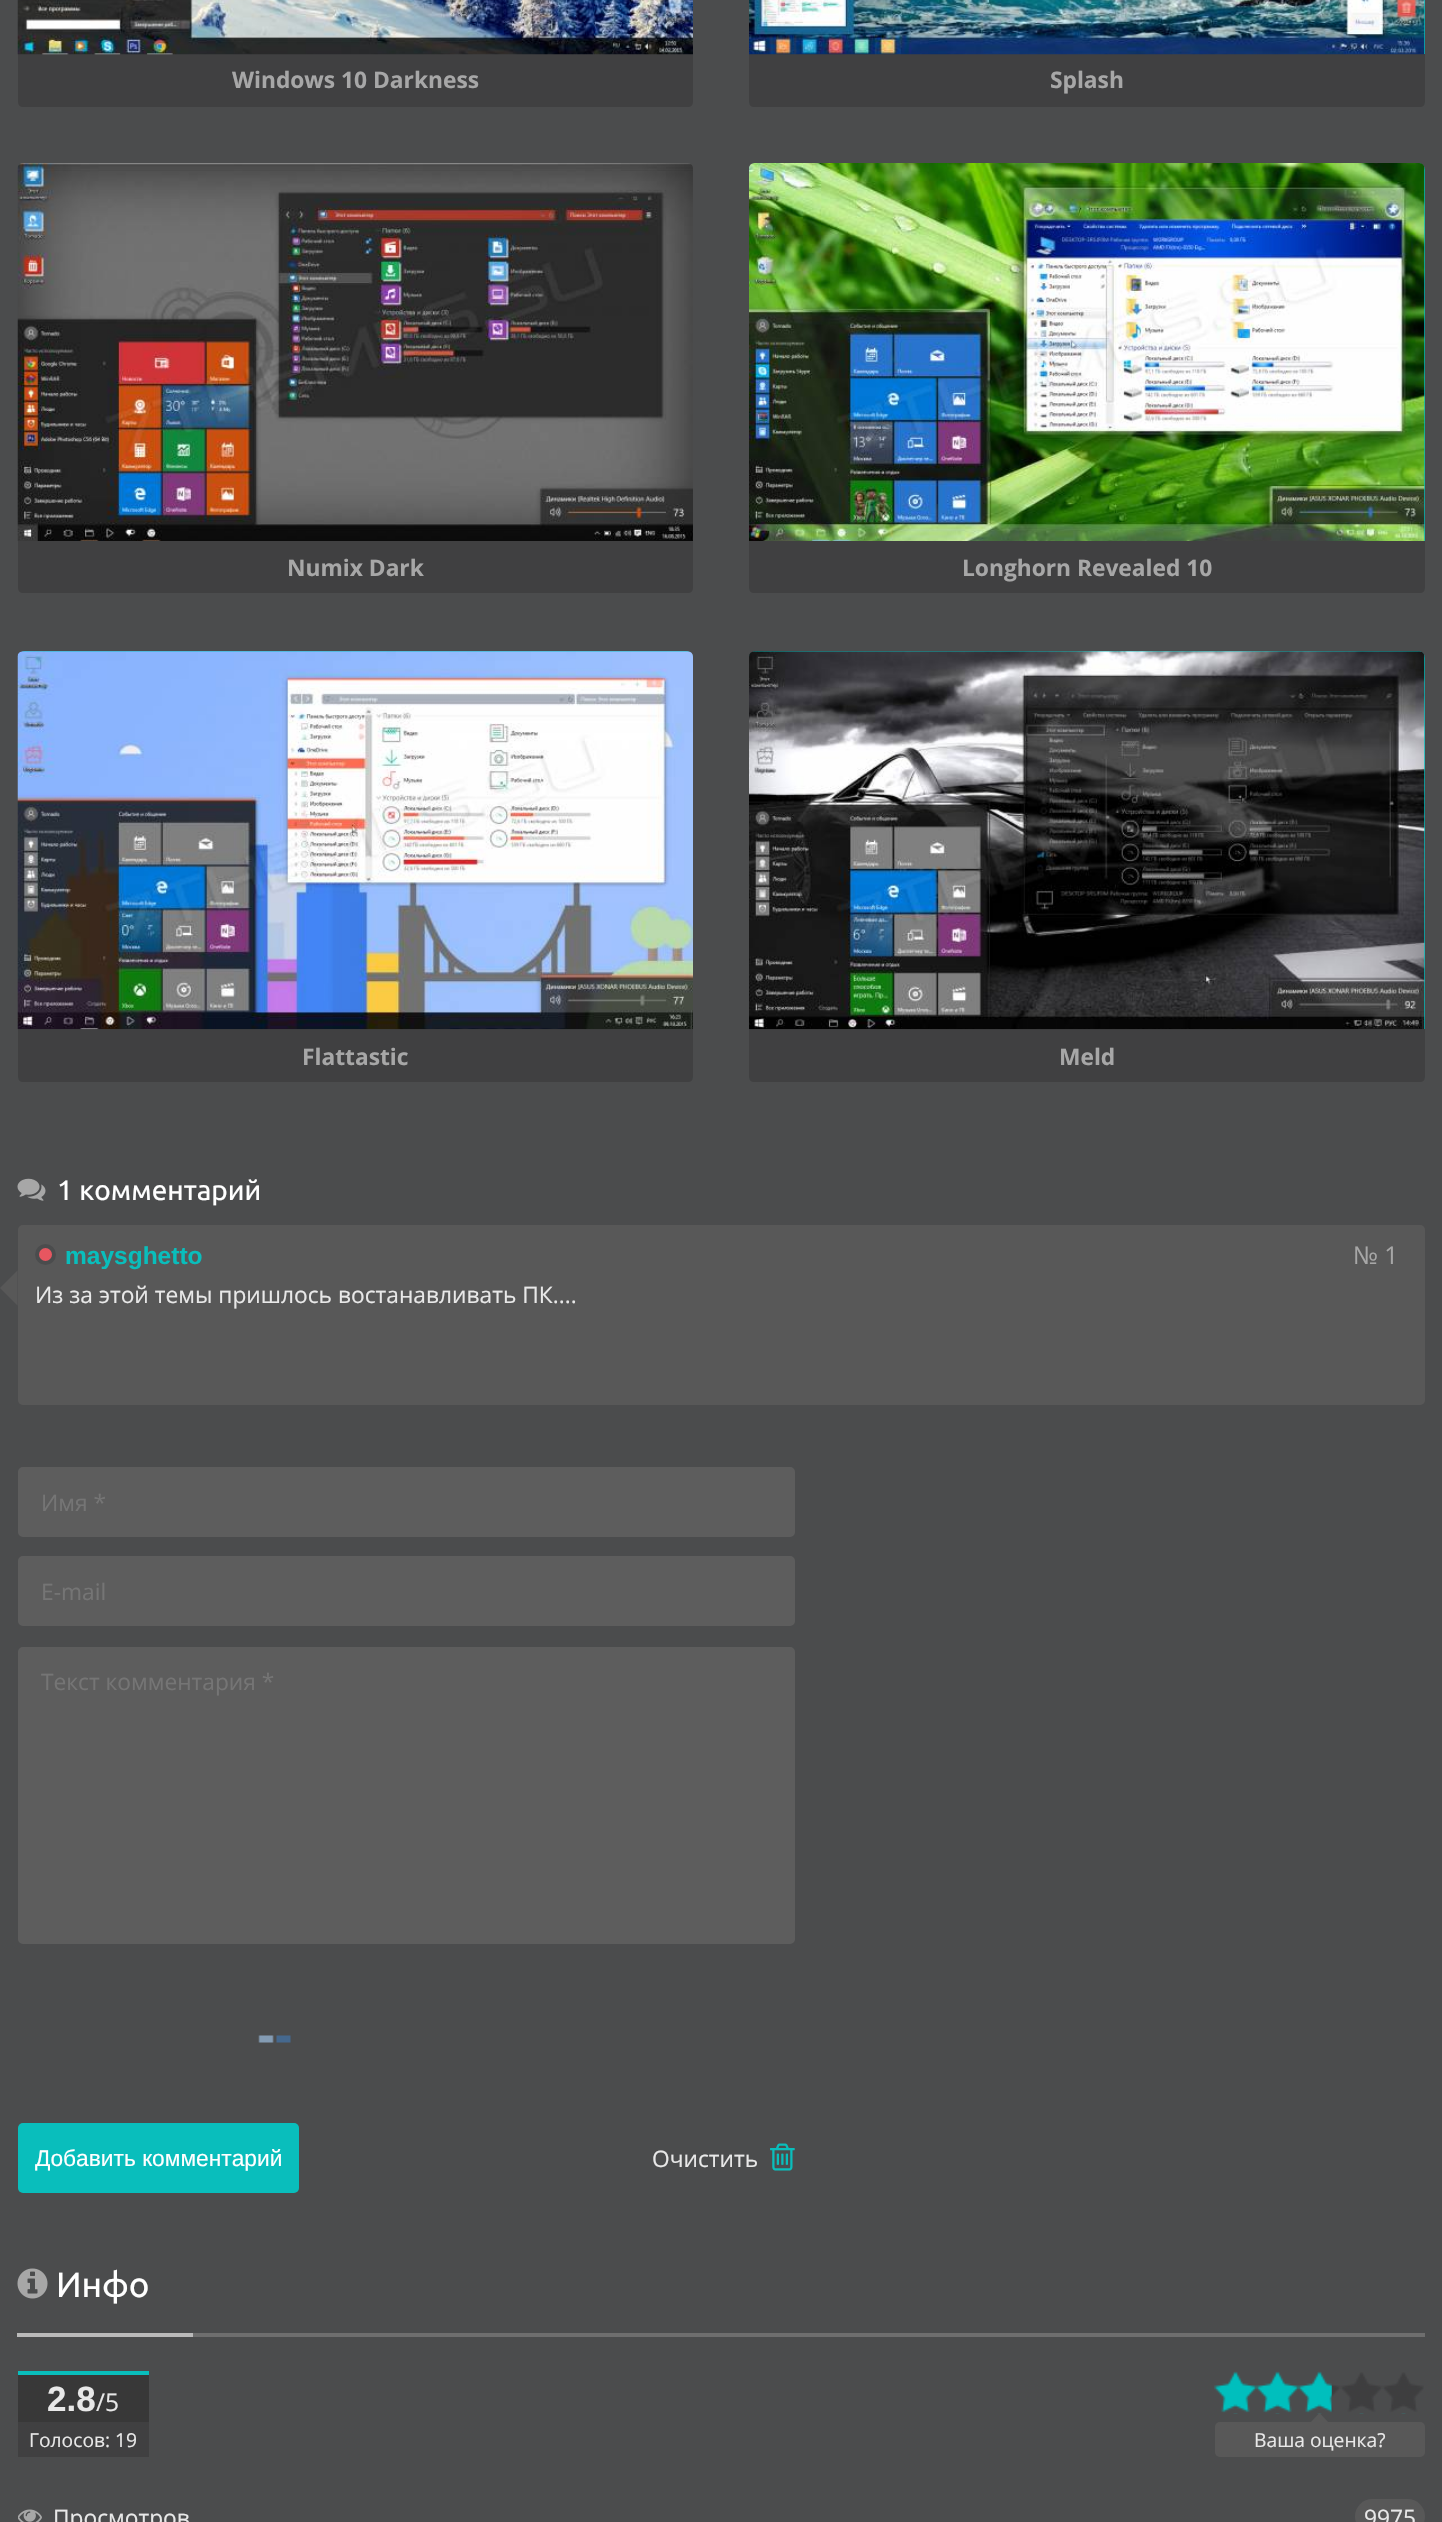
void draw(SkCanvas* canvas) {
    SkPaint paint;
    paint.setAntiAlias(true);
    canvas->clear(0xFF4B4C4D);
    paint.setColor(0xFF404041);
    canvas->drawPath(SkPathBuilder().moveTo(18, 54).lineTo(693, 54).lineTo(693, 102).cubicTo(693, 105, 691, 107, 688, 107).lineTo(23, 107).cubicTo(20, 107, 18, 105, 18, 102).close().detach(), paint);
    canvas->drawImageRect(SkImages::DeferredFromEncodedData(SkData::MakeFromFileName("img1.png")), SkRect::MakeXYWH(17, 0, 676, 55), SkSamplingOptions());
    SkFont font1(fontMgr->matchFamilyStyle("Open Sans", SkFontStyle::Bold()), 22.75f);
    font1.setSubpixel(true);
    paint.setColor(0xFFA7A7A7);
    canvas->drawString("Windows 10 Darkness", 232, 88, font1, paint);
    paint.setColor(0xFF09BEBC);
    canvas->drawRoundRect(SkRect::MakeXYWH(749, -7, 676, 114), 7, 7, paint);
    paint.setColor(0xFF404041);
    canvas->drawPath(SkPathBuilder().moveTo(749, 54).lineTo(1425, 54).lineTo(1425, 102).cubicTo(1425, 105, 1423, 107, 1420, 107).lineTo(754, 107).cubicTo(751, 107, 749, 105, 749, 102).close().detach(), paint);
    canvas->drawImageRect(SkImages::DeferredFromEncodedData(SkData::MakeFromFileName("img2.png")), SkRect::MakeXYWH(749, 0, 676, 55), SkSamplingOptions());
    paint.setColor(0xFFA7A7A7);
    canvas->drawString("Splash", 1050, 88, font1, paint);
    canvas->drawImageRect(SkImages::DeferredFromEncodedData(SkData::MakeFromFileName("img3.png")), SkRect::MakeXYWH(17, 163, 676, 378), SkSamplingOptions());
    paint.setColor(0xFF404041);
    canvas->drawPath(SkPathBuilder().moveTo(18, 541).lineTo(693, 541).lineTo(693, 588).cubicTo(693, 591, 691, 593, 688, 593).lineTo(23, 593).cubicTo(20, 593, 18, 591, 18, 588).close().detach(), paint);
    paint.setColor(0xFFA7A7A7);
    canvas->drawString("Numix Dark", 287, 576, font1, paint);
    paint.setColor(0xFF09BEBC);
    canvas->drawRoundRect(SkRect::MakeXYWH(749, 163, 676, 430), 7, 7, paint);
    canvas->drawImageRect(SkImages::DeferredFromEncodedData(SkData::MakeFromFileName("img4.png")), SkRect::MakeXYWH(749, 163, 676, 378), SkSamplingOptions());
    paint.setColor(0xFF404041);
    canvas->drawPath(SkPathBuilder().moveTo(749, 541).lineTo(1425, 541).lineTo(1425, 588).cubicTo(1425, 591, 1423, 593, 1420, 593).lineTo(754, 593).cubicTo(751, 593, 749, 591, 749, 588).close().detach(), paint);
    paint.setColor(0xFFA7A7A7);
    canvas->drawString("Longhorn Revealed 10", 962, 576, font1, paint);
    paint.setColor(0xFF09BEBC);
    canvas->drawRoundRect(SkRect::MakeXYWH(18, 651, 675, 431), 7, 7, paint);
    paint.setColor(0xFF404041);
    canvas->drawPath(SkPathBuilder().moveTo(18, 1029).lineTo(693, 1029).lineTo(693, 1077).cubicTo(693, 1080, 691, 1082, 688, 1082).lineTo(23, 1082).cubicTo(20, 1082, 18, 1080, 18, 1077).close().detach(), paint);
    canvas->drawImageRect(SkImages::DeferredFromEncodedData(SkData::MakeFromFileName("img5.png")), SkRect::MakeXYWH(17, 651, 676, 379), SkSamplingOptions());
    paint.setColor(0xFFA7A7A7);
    canvas->drawString("Flattastic", 302, 1065, font1, paint);
    paint.setColor(0xFF09BEBC);
    canvas->drawRoundRect(SkRect::MakeXYWH(749, 651, 676, 431), 7, 7, paint);
    paint.setColor(0xFF404041);
    canvas->drawPath(SkPathBuilder().moveTo(749, 1029).lineTo(1425, 1029).lineTo(1425, 1077).cubicTo(1425, 1080, 1423, 1082, 1420, 1082).lineTo(754, 1082).cubicTo(751, 1082, 749, 1080, 749, 1077).close().detach(), paint);
    canvas->drawImageRect(SkImages::DeferredFromEncodedData(SkData::MakeFromFileName("img6.png")), SkRect::MakeXYWH(749, 651, 676, 379), SkSamplingOptions());
    paint.setColor(0xFFA7A7A7);
    canvas->drawString("Meld", 1059, 1065, font1, paint);
    canvas->drawImageRect(SkImages::DeferredFromEncodedData(SkData::MakeFromFileName("img7.png")), SkRect::MakeXYWH(17, 1178, 29, 23), SkSamplingOptions());
    SkFont font2(fontMgr->matchFamilyStyle("Ubuntu", SkFontStyle::Normal()), 28);
    font2.setSubpixel(true);
    paint.setColor(0xFFFFFFFF);
    canvas->drawString("1 комментарий", 57, 1200, font2, paint);
    paint.setColor(0xFF585858);
    canvas->drawRoundRect(SkRect::MakeXYWH(18, 1225, 1407, 180), 5, 5, paint);
    paint.setColor(0xFFE75660);
    canvas->drawCircle(45.5f, 1254.5f, 8.5f, paint);
    paint.setStyle(SkPaint::kStroke_Style);
    paint.setStrokeWidth(4);
    paint.setColor(0xFF4B4C4D);
    canvas->drawCircle(45.5f, 1254.5f, 8.5f, paint);
    SkFont font3(fontMgr->matchFamilyStyle("Liberation Sans", SkFontStyle::Bold()), 24.5f);
    font3.setSubpixel(true);
    paint.setStyle(SkPaint::kFill_Style);
    paint.setColor(0xFF09BEBC);
    canvas->drawString("maysghetto", 65, 1264, font3, paint);
    SkFont font4(fontMgr->matchFamilyStyle("Open Sans", SkFontStyle::Normal()), 24.5f);
    font4.setSubpixel(true);
    paint.setColor(0xFFA7A7A7);
    canvas->drawString("№ 1", 1353, 1264, font4, paint);
    paint.setColor(0xFF585858);
    canvas->drawPath(SkPathBuilder().moveTo(17.5f, 1270.5f).lineTo(17.5f, 1305.5f).lineTo(0, 1288).close().detach(), paint);
    SkFont font5(fontMgr->matchFamilyStyle("Open Sans", SkFontStyle::Normal()), 22.75f);
    font5.setSubpixel(true);
    paint.setColor(0xFFE8E8E8);
    canvas->drawString("Из за этой темы пришлось востанавливать ПК....", 35, 1303, font5, paint);
    paint.setColor(0xFF5D5D5D);
    canvas->drawRoundRect(SkRect::MakeXYWH(19, 1468, 775, 68), 4, 4, paint);
    paint.setStyle(SkPaint::kStroke_Style);
    paint.setStrokeWidth(2);
    canvas->drawRoundRect(SkRect::MakeXYWH(19, 1468, 775, 68), 4, 4, paint);
    paint.setStyle(SkPaint::kFill_Style);
    paint.setColor(0xFF757575);
    canvas->drawString("Имя *", 41, 1511, font5, paint);
    paint.setColor(0xFF5D5D5D);
    canvas->drawRoundRect(SkRect::MakeXYWH(19, 1557, 775, 68), 4, 4, paint);
    paint.setStyle(SkPaint::kStroke_Style);
    canvas->drawRoundRect(SkRect::MakeXYWH(19, 1557, 775, 68), 4, 4, paint);
    paint.setStyle(SkPaint::kFill_Style);
    paint.setColor(0xFF757575);
    canvas->drawString("E-mail", 41, 1600, font5, paint);
    paint.setColor(0xFF5D5D5D);
    canvas->drawRoundRect(SkRect::MakeXYWH(19, 1648, 775, 295), 4, 4, paint);
    paint.setStyle(SkPaint::kStroke_Style);
    canvas->drawRoundRect(SkRect::MakeXYWH(19, 1648, 775, 295), 4, 4, paint);
    paint.setStyle(SkPaint::kFill_Style);
    paint.setColor(0xFF757575);
    canvas->drawString("Текст комментария *", 41, 1690, font5, paint);
    canvas->drawImageRect(SkImages::DeferredFromEncodedData(SkData::MakeFromFileName("img8.png")), SkRect::MakeXYWH(258, 2035, 33, 8), SkSamplingOptions());
    paint.setColor(0xFF09BEBC);
    canvas->drawRoundRect(SkRect::MakeXYWH(18, 2123, 281, 70), 5, 5, paint);
    SkFont font6(fontMgr->matchFamilyStyle("Liberation Sans", SkFontStyle::Normal()), 22.75f);
    font6.setSubpixel(true);
    paint.setColor(0xFFFFFFFF);
    canvas->drawString("Добавить комментарий", 35, 2166, font6, paint);
    paint.setColor(0xFFE8E8E8);
    canvas->drawString("Oчистить", 652, 2167, font5, paint);
    canvas->drawImageRect(SkImages::DeferredFromEncodedData(SkData::MakeFromFileName("img9.png")), SkRect::MakeXYWH(770, 2143, 25, 28), SkSamplingOptions());
    paint.setColor(0xFF6E6E6E);
    canvas->drawRect(SkRect::MakeXYWH(193, 2333, 1232, 4), paint);
    paint.setColor(0xFFBABABA);
    canvas->drawRect(SkRect::MakeXYWH(17, 2333, 176, 4), paint);
    canvas->drawImageRect(SkImages::DeferredFromEncodedData(SkData::MakeFromFileName("img10.png")), SkRect::MakeXYWH(17, 2268, 31, 31), SkSamplingOptions());
    SkFont font7(fontMgr->matchFamilyStyle("Ubuntu", SkFontStyle::Normal()), 35);
    font7.setSubpixel(true);
    paint.setColor(0xFFFFFFFF);
    canvas->drawString("Инфо", 56, 2297, font7, paint);
    paint.setColor(0xFF383838);
    canvas->drawRect(SkRect::MakeXYWH(18, 2375, 131, 47), paint);
    paint.setColor(0xFF09BEBC);
    canvas->drawRect(SkRect::MakeXYWH(18, 2371, 131, 4), paint);
    SkFont font8(fontMgr->matchFamilyStyle("Liberation Sans", SkFontStyle::Bold()), 35);
    font8.setSubpixel(true);
    paint.setColor(0xFFE8E8E8);
    canvas->drawString("2.8", 47, 2411, font8, paint);
    canvas->drawString("/5", 96, 2411, font4, paint);
    paint.setColor(0xFF404041);
    canvas->drawRect(SkRect::MakeXYWH(18, 2422, 131, 35), paint);
    SkFont font9(fontMgr->matchFamilyStyle("Open Sans", SkFontStyle::Normal()), 19.25f);
    font9.setSubpixel(true);
    paint.setColor(0xFFE8E8E8);
    canvas->drawString("Голосов: 19", 29, 2447, font9, paint);
    canvas->drawImageRect(SkImages::DeferredFromEncodedData(SkData::MakeFromFileName("img11.png")), SkRect::MakeXYWH(1215, 2372, 209, 42), SkSamplingOptions());
    canvas->drawImageRect(SkImages::DeferredFromEncodedData(SkData::MakeFromFileName("img12.png")), SkRect::MakeXYWH(1214, 2371, 118, 42), SkSamplingOptions());
    paint.setColor(0xFF585858);
    canvas->drawRoundRect(SkRect::MakeXYWH(1215, 2422, 210, 35), 5, 5, paint);
    canvas->drawPath(SkPathBuilder().moveTo(1328, 2422).lineTo(1311, 2422).lineTo(1319.5f, 2413).close().detach(), paint);
    paint.setColor(0xFFE8E8E8);
    canvas->drawString("Ваша оценка?", 1254, 2447, font9, paint);
    canvas->drawImageRect(SkImages::DeferredFromEncodedData(SkData::MakeFromFileName("img13.png")), SkRect::MakeXYWH(18, 2509, 24, 13), SkSamplingOptions());
    canvas->drawString("Просмотров", 53, 2526, font5, paint);
    paint.setColor(0xFF585858);
    canvas->drawRoundRect(SkRect::MakeXYWH(1355, 2499, 70, 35), 17.5f, 17.5f, paint);
    paint.setColor(0xFFE8E8E8);
    canvas->drawString("9975", 1364, 2526, font5, paint);
}
